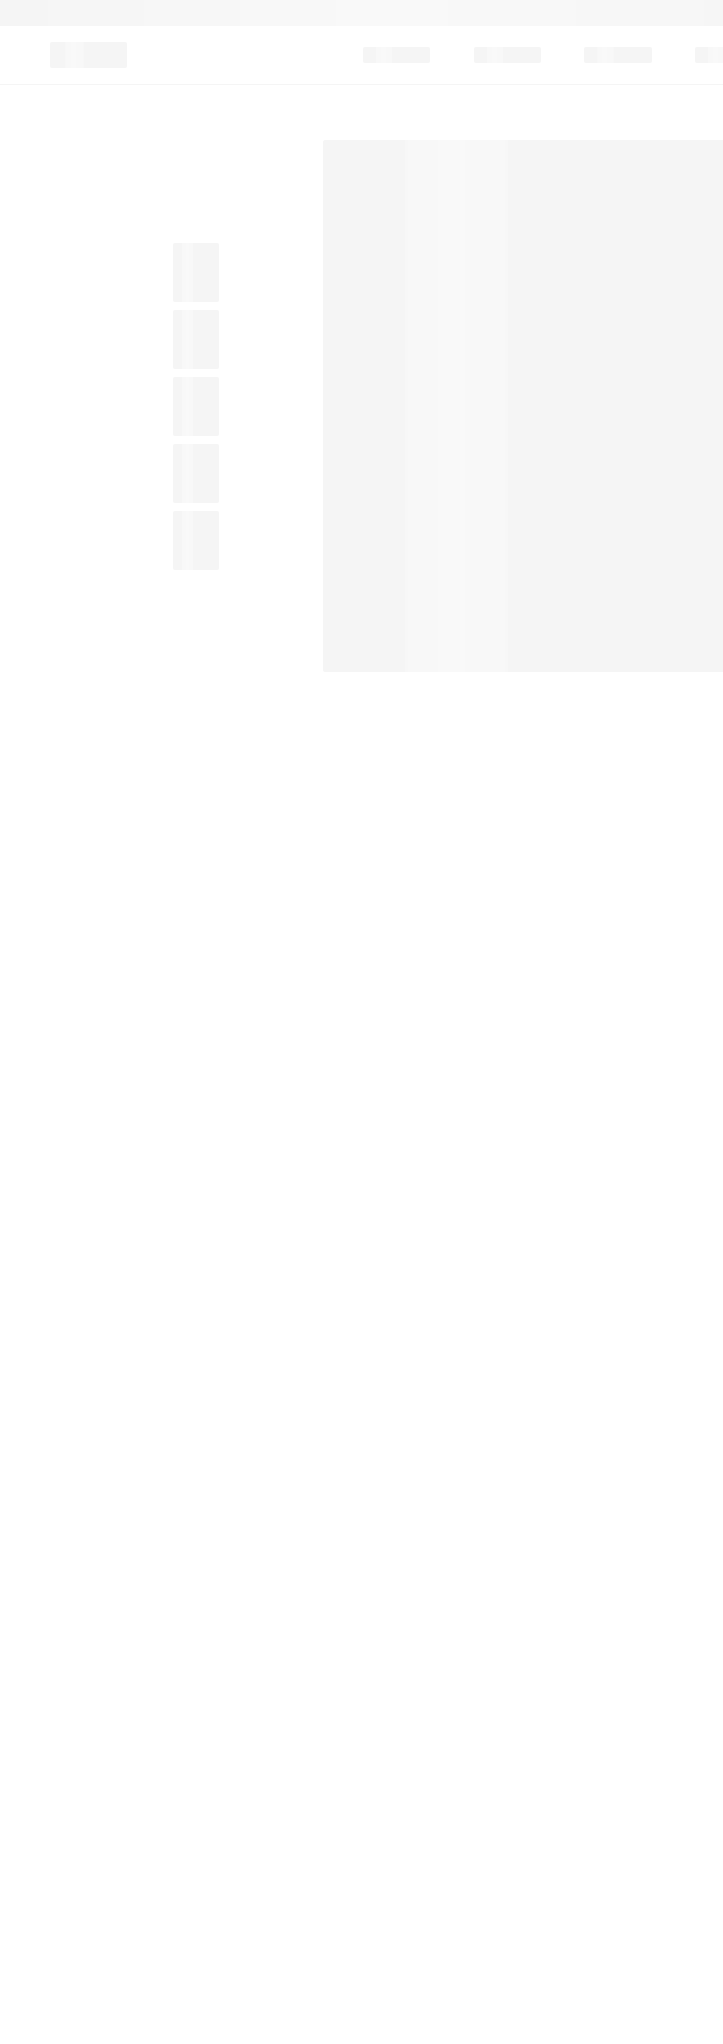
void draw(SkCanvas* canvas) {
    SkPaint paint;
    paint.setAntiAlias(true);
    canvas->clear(0xFFFFFFFF);
    paint.setColor(0xFFF5F5F5);
    canvas->drawRect(SkRect::MakeXYWH(0, 84, 723, 1), paint);
    {
        const SkColor colors[] = {0xFFF5F5F5, 0xFFF9F9F9, 0xFFF5F5F5};
        const float stops[] = {0, 0.3f, 0.7f};
        const SkPoint ends[] = {{0, 13}, {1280, 13}};
        paint.setShader(SkGradientShader::MakeLinear(ends, colors, stops, 3, SkTileMode::kClamp));
        paint.setAlpha(255);
    }
    canvas->drawRect(SkRect::MakeXYWH(0, 0, 723, 26), paint);
    paint.setShader(nullptr);
    paint.setColor(0xFFF5F5F5);
    canvas->drawRoundRect(SkRect::MakeXYWH(50, 42, 77, 26), 2, 2, paint);
    {
        const SkColor colors[] = {0x00FFFFFF, 0x66FFFFFF, 0x00FFFFFF};
        const float stops[] = {0, 0.3f, 0.7f};
        const SkPoint ends[] = {{50, 55}, {127, 55}};
        paint.setShader(SkGradientShader::MakeLinear(ends, colors, stops, 3, SkTileMode::kClamp));
        paint.setAlpha(255);
    }
    canvas->drawRect(SkRect::MakeXYWH(65, 42, 19, 26), paint);
    paint.setShader(nullptr);
    paint.setColor(0xFFF5F5F5);
    canvas->drawRoundRect(SkRect::MakeXYWH(363, 47, 67, 16), 2, 2, paint);
    {
        const SkColor colors[] = {0x00FFFFFF, 0x66FFFFFF, 0x00FFFFFF};
        const float stops[] = {0, 0.3f, 0.7f};
        const SkPoint ends[] = {{363, 55}, {430, 55}};
        paint.setShader(SkGradientShader::MakeLinear(ends, colors, stops, 3, SkTileMode::kClamp));
        paint.setAlpha(255);
    }
    canvas->drawRect(SkRect::MakeXYWH(376, 47, 16, 16), paint);
    paint.setShader(nullptr);
    paint.setColor(0xFFF5F5F5);
    canvas->drawRoundRect(SkRect::MakeXYWH(474, 47, 67, 16), 2, 2, paint);
    {
        const SkColor colors[] = {0x00FFFFFF, 0x66FFFFFF, 0x00FFFFFF};
        const float stops[] = {0, 0.3f, 0.7f};
        const SkPoint ends[] = {{474, 55}, {541, 55}};
        paint.setShader(SkGradientShader::MakeLinear(ends, colors, stops, 3, SkTileMode::kClamp));
        paint.setAlpha(255);
    }
    canvas->drawRect(SkRect::MakeXYWH(487, 47, 16, 16), paint);
    paint.setShader(nullptr);
    paint.setColor(0xFFF5F5F5);
    canvas->drawRoundRect(SkRect::MakeXYWH(584, 47, 68, 16), 2, 2, paint);
    {
        const SkColor colors[] = {0x00FFFFFF, 0x66FFFFFF, 0x00FFFFFF};
        const float stops[] = {0, 0.3f, 0.7f};
        const SkPoint ends[] = {{584, 55}, {652, 55}};
        paint.setShader(SkGradientShader::MakeLinear(ends, colors, stops, 3, SkTileMode::kClamp));
        paint.setAlpha(255);
    }
    canvas->drawRect(SkRect::MakeXYWH(597, 47, 17, 16), paint);
    paint.setShader(nullptr);
    paint.setColor(0xFFF5F5F5);
    canvas->drawRoundRect(SkRect::MakeXYWH(695, 47, 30, 16), 2, 2, paint);
    {
        const SkColor colors[] = {0x00FFFFFF, 0x66FFFFFF, 0x00FFFFFF};
        const float stops[] = {0, 0.3f, 0.7f};
        const SkPoint ends[] = {{695, 55}, {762, 55}};
        paint.setShader(SkGradientShader::MakeLinear(ends, colors, stops, 3, SkTileMode::kClamp));
        paint.setAlpha(255);
    }
    canvas->drawRect(SkRect::MakeXYWH(708, 47, 15, 16), paint);
    paint.setShader(nullptr);
    paint.setColor(0xFFF5F5F5);
    canvas->drawRoundRect(SkRect::MakeXYWH(173, 243, 46, 59), 2, 2, paint);
    {
        const SkColor colors[] = {0x00FFFFFF, 0x66FFFFFF, 0x00FFFFFF};
        const float stops[] = {0, 0.3f, 0.7f};
        const SkPoint ends[] = {{173, 273}, {219, 273}};
        paint.setShader(SkGradientShader::MakeLinear(ends, colors, stops, 3, SkTileMode::kClamp));
        paint.setAlpha(255);
    }
    canvas->drawRect(SkRect::MakeXYWH(182, 243, 11, 59), paint);
    paint.setShader(nullptr);
    paint.setColor(0xFFF5F5F5);
    canvas->drawRoundRect(SkRect::MakeXYWH(173, 310, 46, 59), 2, 2, paint);
    {
        const SkColor colors[] = {0x00FFFFFF, 0x66FFFFFF, 0x00FFFFFF};
        const float stops[] = {0, 0.3f, 0.7f};
        const SkPoint ends[] = {{173, 340}, {219, 340}};
        paint.setShader(SkGradientShader::MakeLinear(ends, colors, stops, 3, SkTileMode::kClamp));
        paint.setAlpha(255);
    }
    canvas->drawRect(SkRect::MakeXYWH(182, 310, 11, 59), paint);
    paint.setShader(nullptr);
    paint.setColor(0xFFF5F5F5);
    canvas->drawRoundRect(SkRect::MakeXYWH(173, 377, 46, 59), 2, 2, paint);
    {
        const SkColor colors[] = {0x00FFFFFF, 0x66FFFFFF, 0x00FFFFFF};
        const float stops[] = {0, 0.3f, 0.7f};
        const SkPoint ends[] = {{173, 407}, {219, 407}};
        paint.setShader(SkGradientShader::MakeLinear(ends, colors, stops, 3, SkTileMode::kClamp));
        paint.setAlpha(255);
    }
    canvas->drawRect(SkRect::MakeXYWH(182, 377, 11, 59), paint);
    paint.setShader(nullptr);
    paint.setColor(0xFFF5F5F5);
    canvas->drawRoundRect(SkRect::MakeXYWH(173, 444, 46, 59), 2, 2, paint);
    {
        const SkColor colors[] = {0x00FFFFFF, 0x66FFFFFF, 0x00FFFFFF};
        const float stops[] = {0, 0.3f, 0.7f};
        const SkPoint ends[] = {{173, 474}, {219, 474}};
        paint.setShader(SkGradientShader::MakeLinear(ends, colors, stops, 3, SkTileMode::kClamp));
        paint.setAlpha(255);
    }
    canvas->drawRect(SkRect::MakeXYWH(182, 444, 11, 59), paint);
    paint.setShader(nullptr);
    paint.setColor(0xFFF5F5F5);
    canvas->drawRoundRect(SkRect::MakeXYWH(173, 511, 46, 59), 2, 2, paint);
    {
        const SkColor colors[] = {0x00FFFFFF, 0x66FFFFFF, 0x00FFFFFF};
        const float stops[] = {0, 0.3f, 0.7f};
        const SkPoint ends[] = {{173, 541}, {219, 541}};
        paint.setShader(SkGradientShader::MakeLinear(ends, colors, stops, 3, SkTileMode::kClamp));
        paint.setAlpha(255);
    }
    canvas->drawRect(SkRect::MakeXYWH(182, 511, 11, 59), paint);
    paint.setShader(nullptr);
    paint.setColor(0xFFF5F5F5);
    canvas->drawPath(SkPathBuilder().moveTo(325, 140).lineTo(723, 140).lineTo(723, 672).lineTo(325, 672).cubicTo(324, 672, 323, 671, 323, 670).lineTo(323, 142).cubicTo(323, 141, 324, 140, 325, 140).close().detach(), paint);
    {
        const SkColor colors[] = {0x00FFFFFF, 0x66FFFFFF, 0x00FFFFFF};
        const float stops[] = {0, 0.3f, 0.7f};
        const SkPoint ends[] = {{323, 406}, {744, 406}};
        paint.setShader(SkGradientShader::MakeLinear(ends, colors, stops, 3, SkTileMode::kClamp));
        paint.setAlpha(255);
    }
    canvas->drawRect(SkRect::MakeXYWH(405, 140, 103, 532), paint);
}
